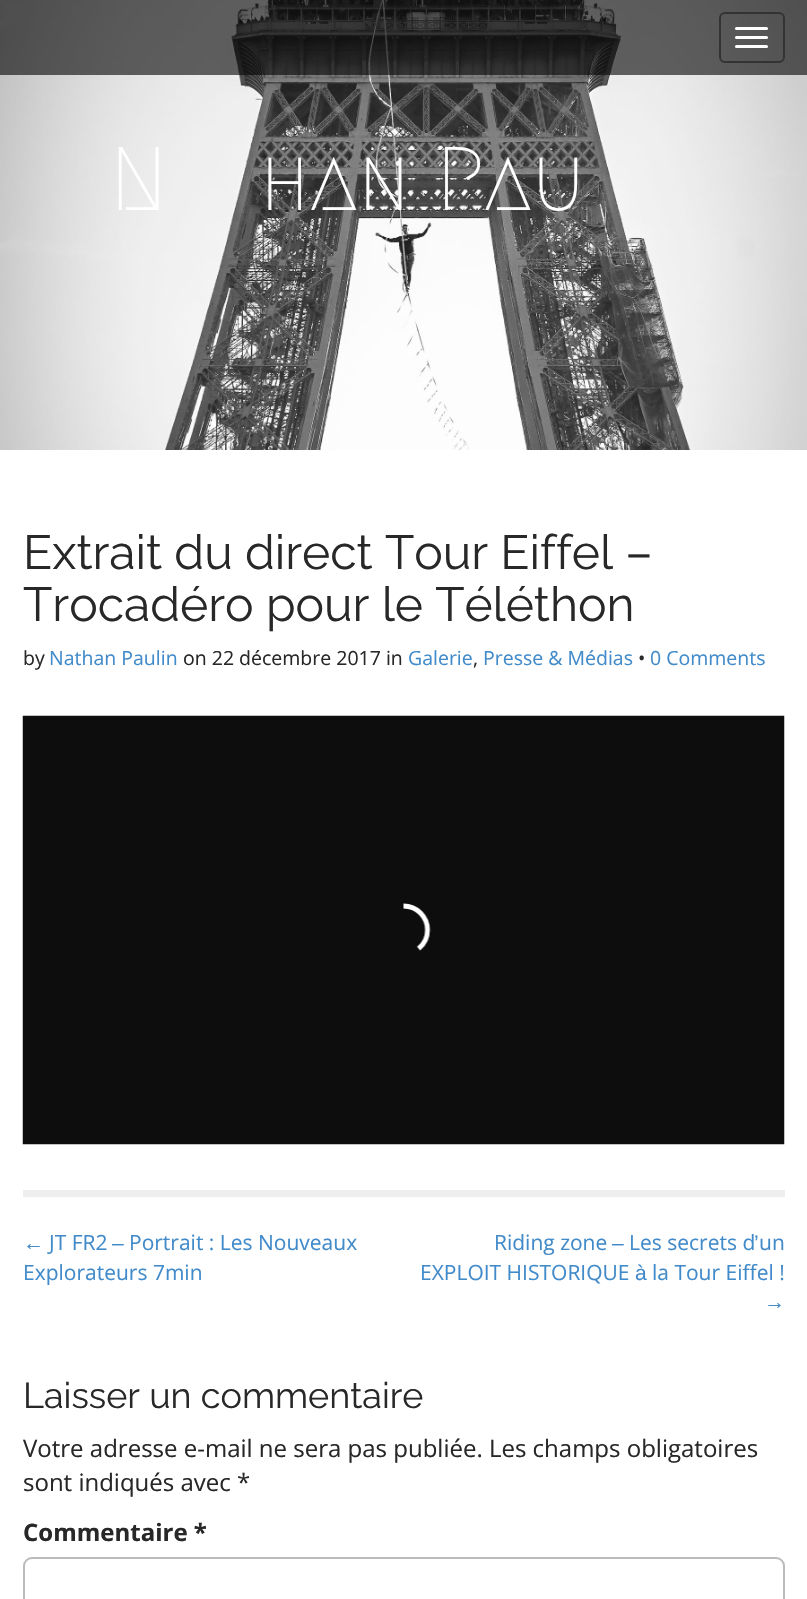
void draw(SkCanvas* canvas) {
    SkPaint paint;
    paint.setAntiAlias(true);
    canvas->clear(0xFFFFFFFF);
    canvas->drawImageRect(SkImages::DeferredFromEncodedData(SkData::MakeFromFileName("img1.png")), SkRect::MakeXYWH(0, 0, 807, 450), SkSamplingOptions());
    paint.setColor(0x99000000);
    canvas->drawRect(SkRect::MakeXYWH(0, 0, 807, 75), paint);
    paint.setStyle(SkPaint::kStroke_Style);
    paint.setStrokeWidth(2);
    paint.setColor(0xFF333333);
    canvas->drawRoundRect(SkRect::MakeXYWH(720, 13, 64, 49), 5, 5, paint);
    paint.setStyle(SkPaint::kFill_Style);
    paint.setColor(0xFFFFFFFF);
    canvas->drawRoundRect(SkRect::MakeXYWH(735, 27, 33, 3), 1.5f, 1.5f, paint);
    canvas->drawRoundRect(SkRect::MakeXYWH(735, 36, 33, 3), 1.5f, 1.5f, paint);
    canvas->drawRoundRect(SkRect::MakeXYWH(735, 45, 33, 3), 1.5f, 1.5f, paint);
    SkFont font1(fontMgr->matchFamilyStyle("Megrim", SkFontStyle(500, SkFontStyle::kNormal_Width, SkFontStyle::kUpright_Slant)), 90);
    font1.setSubpixel(true);
    canvas->drawString("N", 110, 210, font1, paint);
    canvas->drawString("han Pau", 260, 210, font1, paint);
    paint.setColor(0xFFEEEEEE);
    canvas->drawRect(SkRect::MakeXYWH(23, 1190, 762, 7), paint);
    SkFont font2(fontMgr->matchFamilyStyle("Raleway", SkFontStyle(100, SkFontStyle::kNormal_Width, SkFontStyle::kUpright_Slant)), 48);
    font2.setSubpixel(true);
    paint.setColor(0xFF282828);
    canvas->drawString("Extrait du direct Tour Eiffel –", 23, 569, font2, paint);
    canvas->drawString("Trocadéro pour le Téléthon", 23, 621, font2, paint);
    SkFont font3(fontMgr->matchFamilyStyle("Open Sans", SkFontStyle::Normal()), 19.5f);
    font3.setSubpixel(true);
    canvas->drawString("by", 23, 665, font3, paint);
    paint.setColor(0xFF428BCA);
    canvas->drawString("Nathan Paulin", 49, 665, font3, paint);
    paint.setColor(0xFF282828);
    canvas->drawString("on 22 décembre 2017 in", 183, 665, font3, paint);
    paint.setColor(0xFF428BCA);
    canvas->drawString("Galerie", 408, 665, font3, paint);
    canvas->drawString("Presse & Médias", 483, 665, font3, paint);
    paint.setColor(0xFF282828);
    canvas->drawString("•", 638, 665, font3, paint);
    paint.setColor(0xFF428BCA);
    canvas->drawString("0 Comments", 650, 665, font3, paint);
    paint.setColor(0xFF282828);
    canvas->drawString(",", 473, 665, font3, paint);
    canvas->drawImageRect(SkImages::DeferredFromEncodedData(SkData::MakeFromFileName("img2.png")), SkRect::MakeXYWH(22, 715, 763, 430), SkSamplingOptions());
    SkFont font4(fontMgr->matchFamilyStyle("Liberation Sans", SkFontStyle::Normal()), 21);
    font4.setSubpixel(true);
    paint.setColor(0xFF428BCA);
    canvas->drawString("←", 23, 1250, font4, paint);
    SkFont font5(fontMgr->matchFamilyStyle("Open Sans", SkFontStyle::Normal()), 21);
    font5.setSubpixel(true);
    canvas->drawString("JT FR2", 49, 1250, font5, paint);
    canvas->drawString("–", 112, 1250, font4, paint);
    canvas->drawString("Portrait : Les Nouveaux", 129, 1250, font5, paint);
    canvas->drawString("Explorateurs 7min", 23, 1280, font5, paint);
    canvas->drawString("Riding zone", 494, 1250, font5, paint);
    canvas->drawString("–", 612, 1250, font4, paint);
    canvas->drawString("Les secrets d", 629, 1250, font5, paint);
    canvas->drawString("’", 754, 1250, font4, paint);
    canvas->drawString("un", 759, 1250, font5, paint);
    canvas->drawString("EXPLOIT HISTORIQUE", 420, 1280, font5, paint);
    canvas->drawString("à", 635, 1280, font4, paint);
    canvas->drawString("la Tour Eiffel !", 652, 1280, font5, paint);
    canvas->drawString("→", 764, 1309, font4, paint);
    SkFont font6(fontMgr->matchFamilyStyle("Raleway", SkFontStyle(100, SkFontStyle::kNormal_Width, SkFontStyle::kUpright_Slant)), 36);
    font6.setSubpixel(true);
    paint.setColor(0xFF282828);
    canvas->drawString("Laisser un commentaire", 23, 1408, font6, paint);
    SkFont font7(fontMgr->matchFamilyStyle("Open Sans", SkFontStyle::Normal()), 24);
    font7.setSubpixel(true);
    canvas->drawString("Votre adresse e-mail ne sera pas publiée. Les champs obligatoires", 23, 1457, font7, paint);
    canvas->drawString("sont indiqués avec *", 23, 1491, font7, paint);
    SkFont font8(fontMgr->matchFamilyStyle("Open Sans", SkFontStyle::Bold()), 24);
    font8.setSubpixel(true);
    canvas->drawString("Commentaire *", 23, 1541, font8, paint);
    paint.setStyle(SkPaint::kStroke_Style);
    paint.setColor(0xFFBBBBBB);
    canvas->drawRoundRect(SkRect::MakeXYWH(24, 1558, 760, 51), 8, 8, paint);
}
